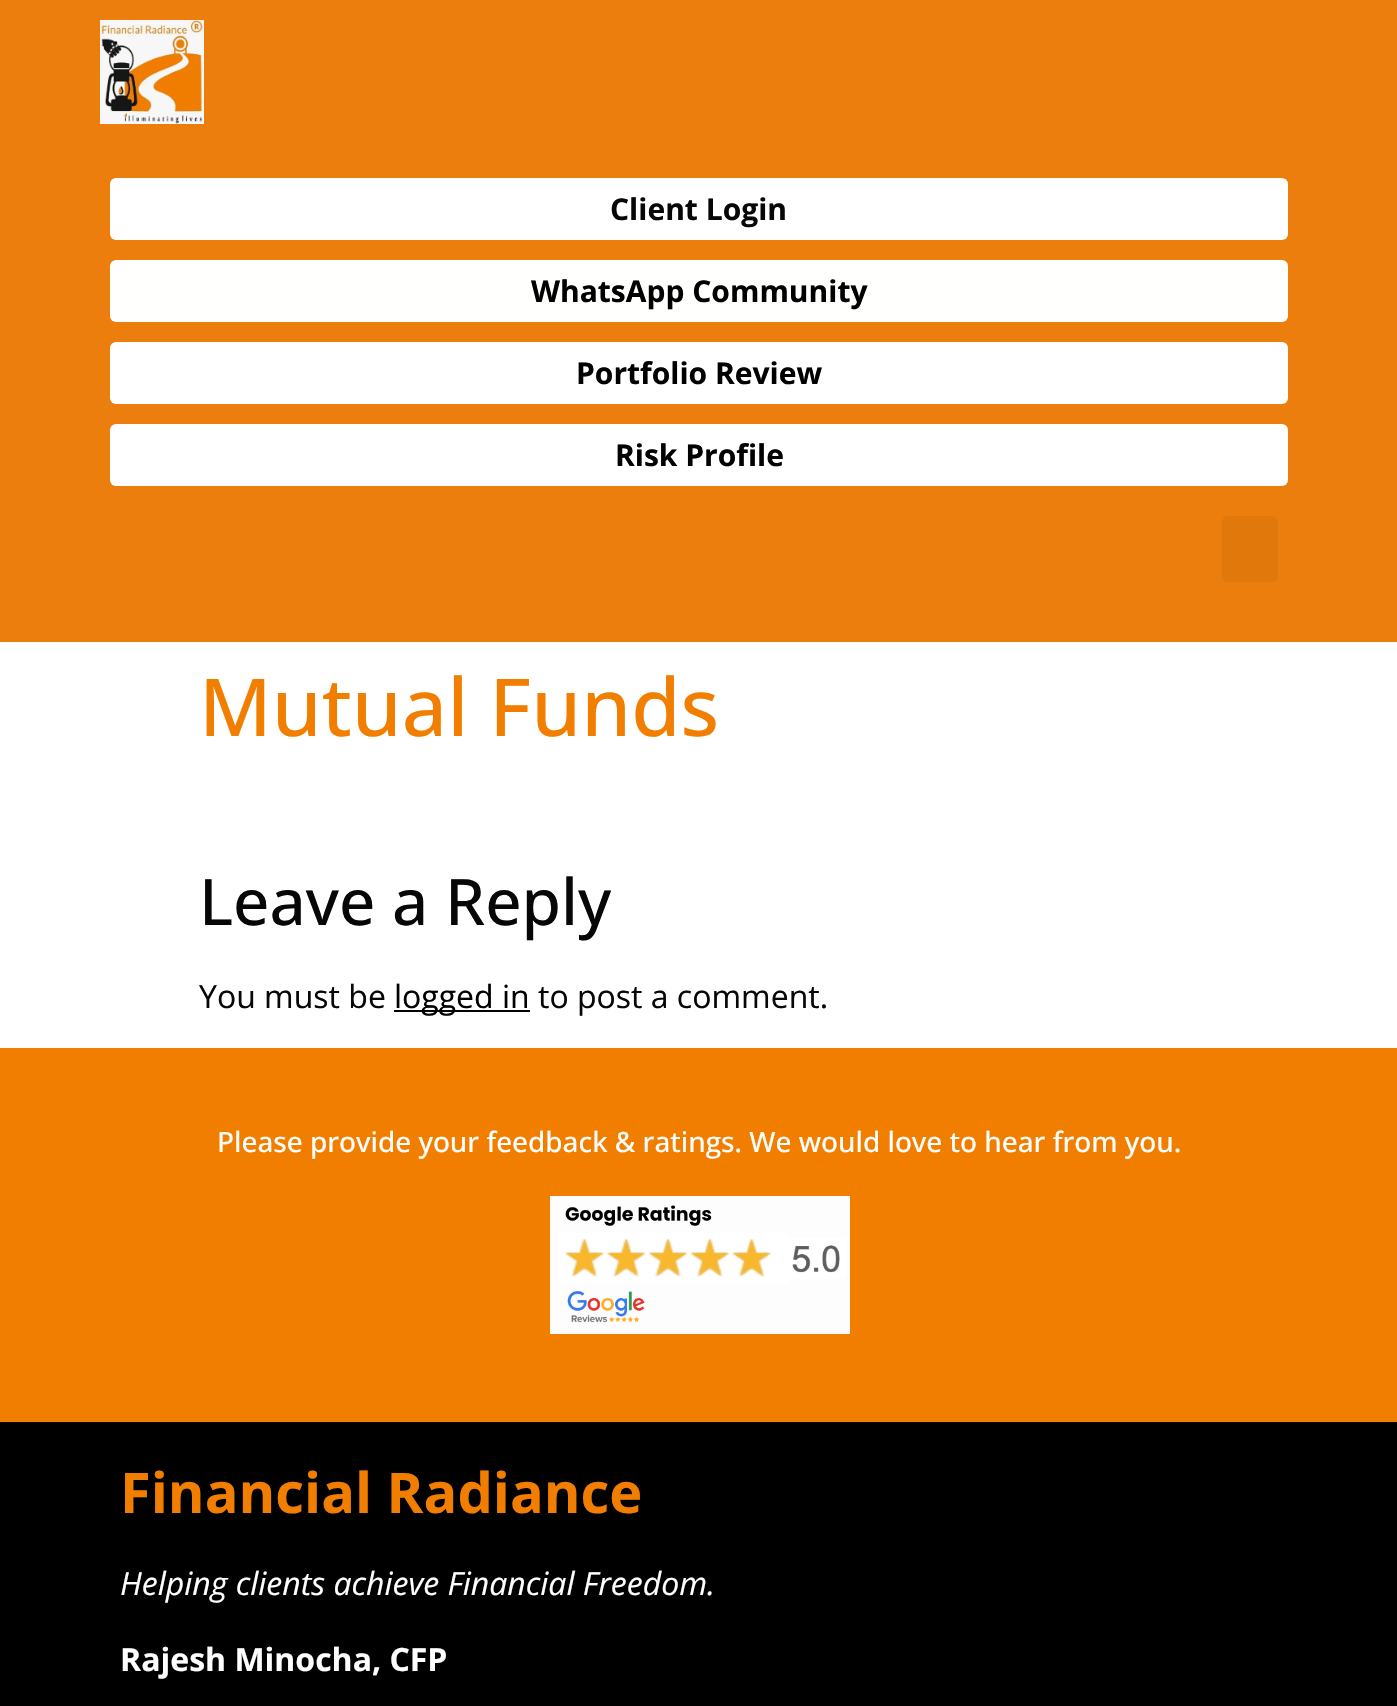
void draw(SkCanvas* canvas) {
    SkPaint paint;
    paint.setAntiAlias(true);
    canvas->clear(0xFFFFFFFF);
    paint.setColor(0xFFEC7E0D);
    canvas->drawRect(SkRect::MakeXYWH(0, 0, 1397, 642), paint);
    canvas->drawImageRect(SkImages::DeferredFromEncodedData(SkData::MakeFromFileName("img1.png")), SkRect::MakeXYWH(100, 20, 104, 104), SkSamplingOptions());
    paint.setColor(0xFFFFFFFF);
    canvas->drawRoundRect(SkRect::MakeXYWH(110, 178, 1178, 62), 6, 6, paint);
    SkFont font1(fontMgr->matchFamilyStyle("Open Sans", SkFontStyle::Bold()), 30);
    font1.setSubpixel(true);
    paint.setColor(0xFF070707);
    canvas->drawString("Client Login", 610, 220, font1, paint);
    paint.setColor(0xFFFFFFFE);
    canvas->drawRoundRect(SkRect::MakeXYWH(110, 260, 1178, 62), 6, 6, paint);
    paint.setColor(0xFF000000);
    canvas->drawString("WhatsApp Community", 531, 302, font1, paint);
    paint.setColor(0xFFFFFFFF);
    canvas->drawRoundRect(SkRect::MakeXYWH(110, 342, 1178, 62), 6, 6, paint);
    paint.setColor(0xFF000000);
    canvas->drawString("Portfolio Review", 576, 384, font1, paint);
    paint.setColor(0xFFFFFFFF);
    canvas->drawRoundRect(SkRect::MakeXYWH(110, 424, 1178, 62), 6, 6, paint);
    paint.setColor(0xFF000000);
    canvas->drawString("Risk Profile", 615, 466, font1, paint);
    paint.setColor(0xFFE0780C);
    canvas->drawRoundRect(SkRect::MakeXYWH(1222, 516, 56, 66), 6, 6, paint);
    SkFont font2(fontMgr->matchFamilyStyle("Open Sans", SkFontStyle(500, SkFontStyle::kNormal_Width, SkFontStyle::kUpright_Slant)), 80);
    font2.setSubpixel(true);
    paint.setColor(0xFFF27E00);
    canvas->drawString("Mutual Funds", 199, 736, font2, paint);
    SkFont font3(fontMgr->matchFamilyStyle("Open Sans", SkFontStyle(500, SkFontStyle::kNormal_Width, SkFontStyle::kUpright_Slant)), 64);
    font3.setSubpixel(true);
    paint.setColor(0xFF070707);
    canvas->drawString("Leave a Reply", 199, 925, font3, paint);
    SkFont font4(fontMgr->matchFamilyStyle("Open Sans", SkFontStyle::Normal()), 32);
    font4.setSubpixel(true);
    canvas->drawString("You must be", 199, 1008, font4, paint);
    paint.setColor(0xFF000000);
    canvas->drawRect(SkRect::MakeXYWH(394, 1010, 136, 2), paint);
    canvas->drawString("logged in", 394, 1008, font4, paint);
    paint.setColor(0xFF070707);
    canvas->drawString("to post a comment.", 538, 1008, font4, paint);
    paint.setColor(0xFFF27E00);
    canvas->drawRect(SkRect::MakeXYWH(0, 1048, 1397, 374), paint);
    SkFont font5(fontMgr->matchFamilyStyle("Open Sans", SkFontStyle(500, SkFontStyle::kNormal_Width, SkFontStyle::kUpright_Slant)), 28);
    font5.setSubpixel(true);
    paint.setColor(0xFFFFFFFF);
    canvas->drawString("Please provide your feedback & ratings. We would love to hear from you.", 217, 1152, font5, paint);
    canvas->drawImageRect(SkImages::DeferredFromEncodedData(SkData::MakeFromFileName("img2.png")), SkRect::MakeXYWH(550, 1196, 300, 138), SkSamplingOptions());
    paint.setColor(0xFF000000);
    canvas->drawRect(SkRect::MakeXYWH(0, 1422, 1397, 284), paint);
    SkFont font6(fontMgr->matchFamilyStyle("Open Sans", SkFontStyle::Bold()), 56);
    font6.setSubpixel(true);
    paint.setColor(0xFFF27E00);
    canvas->drawString("Financial Radiance", 120, 1513, font6, paint);
    SkFont font7(fontMgr->matchFamilyStyle("Open Sans", SkFontStyle::Italic()), 32);
    font7.setSubpixel(true);
    paint.setColor(0xFFFFFFFF);
    canvas->drawString("Helping clients achieve Financial Freedom.", 120, 1595, font7, paint);
    SkFont font8(fontMgr->matchFamilyStyle("Open Sans", SkFontStyle::Bold()), 32);
    font8.setSubpixel(true);
    canvas->drawString("Rajesh Minocha, CFP", 120, 1671, font8, paint);
}
